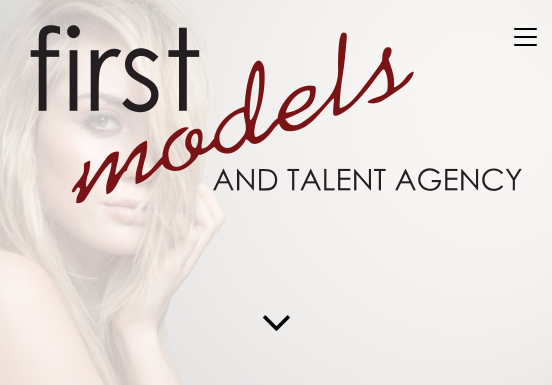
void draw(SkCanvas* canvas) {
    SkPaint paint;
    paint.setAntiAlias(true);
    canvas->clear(0xFFFFFFFF);
    canvas->drawImageRect(SkImages::DeferredFromEncodedData(SkData::MakeFromFileName("img1.png")), SkRect::MakeXYWH(0, 0, 552, 385), SkSamplingOptions());
    canvas->drawImageRect(SkImages::DeferredFromEncodedData(SkData::MakeFromFileName("img2.png")), SkRect::MakeXYWH(30, 25, 492, 179), SkSamplingOptions());
    paint.setColor(0xFF000000);
    canvas->drawRoundRect(SkRect::MakeXYWH(514, 28, 23, 2), 1, 1, paint);
    canvas->drawRoundRect(SkRect::MakeXYWH(514, 36, 23, 2), 1, 1, paint);
    canvas->drawRoundRect(SkRect::MakeXYWH(514, 44, 23, 2), 1, 1, paint);
    canvas->drawImageRect(SkImages::DeferredFromEncodedData(SkData::MakeFromFileName("img3.png")), SkRect::MakeXYWH(263, 315, 27, 16), SkSamplingOptions());
}
